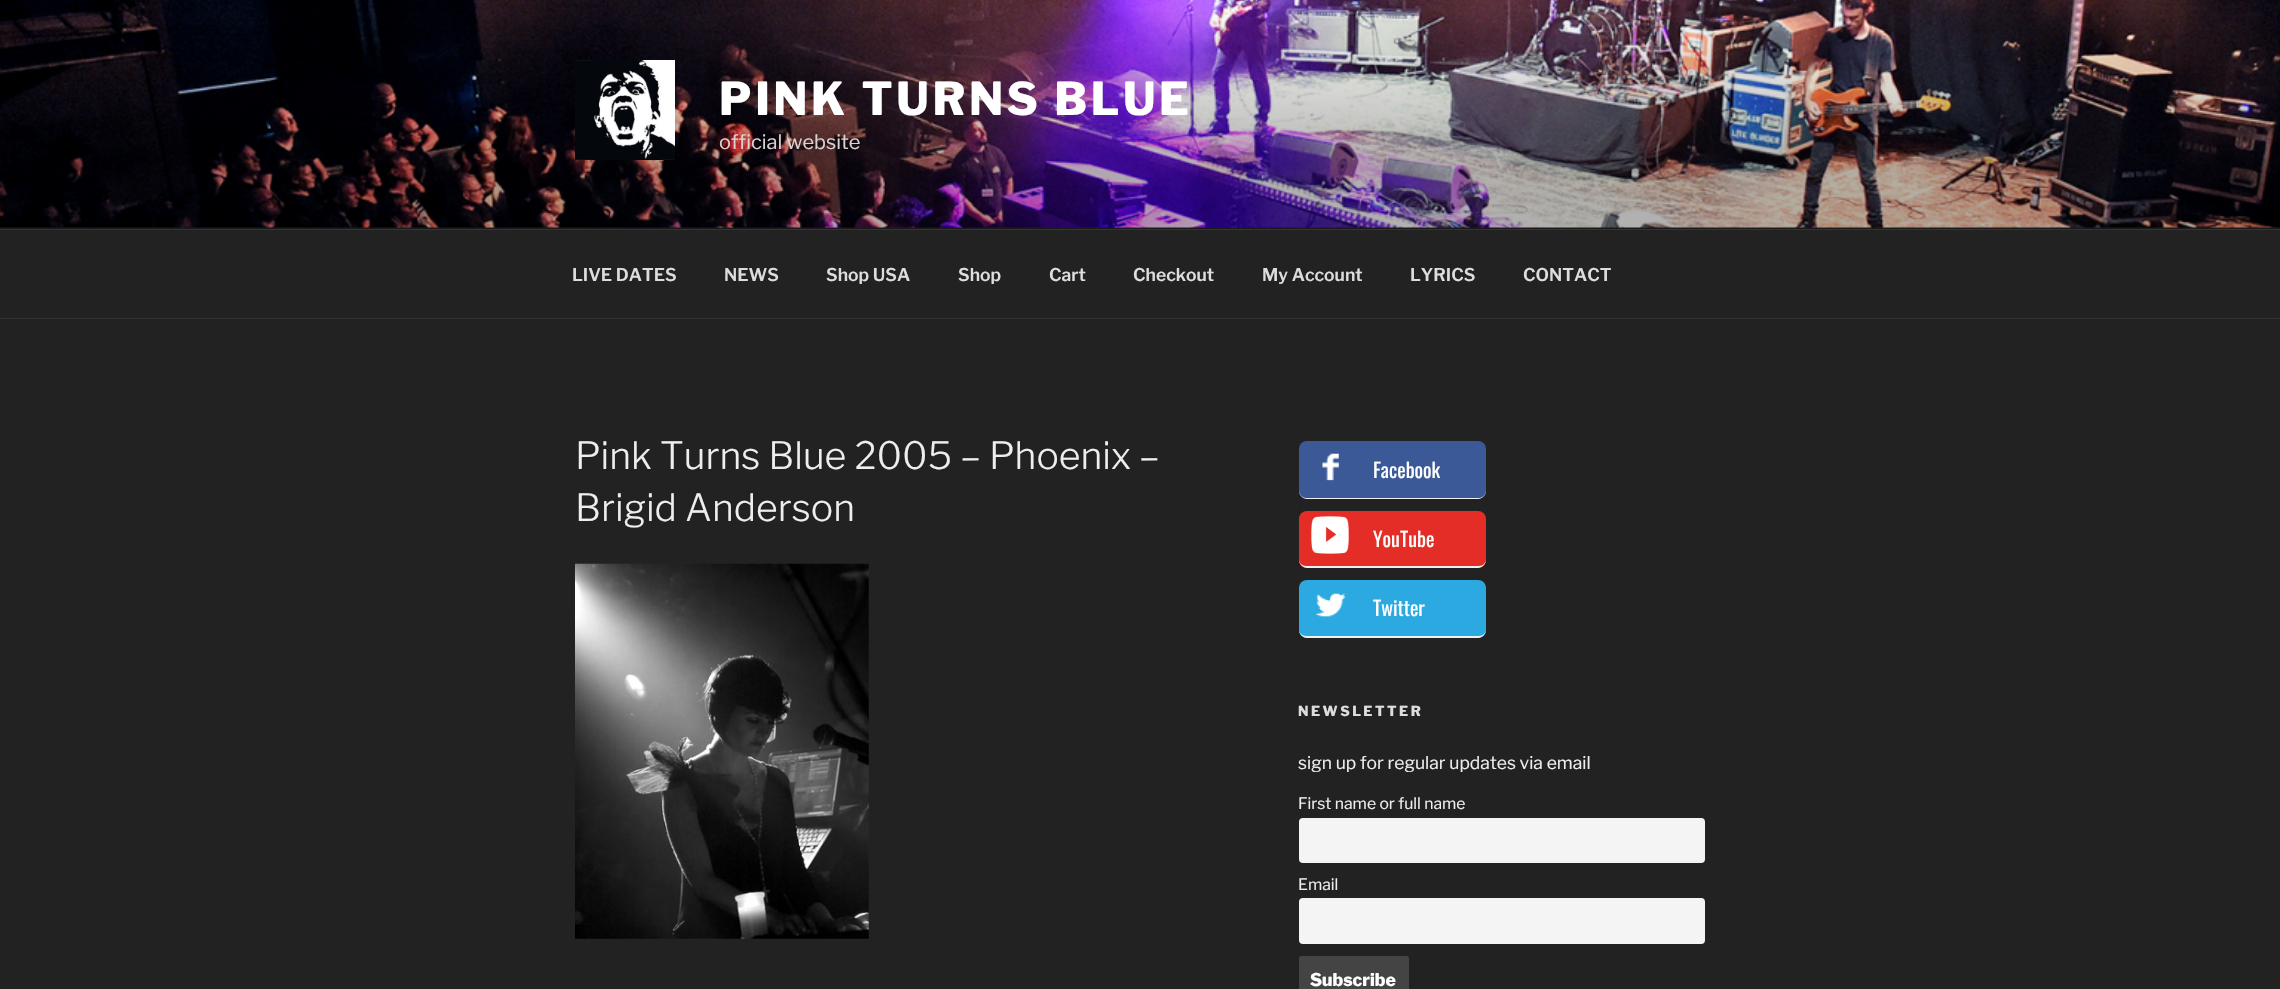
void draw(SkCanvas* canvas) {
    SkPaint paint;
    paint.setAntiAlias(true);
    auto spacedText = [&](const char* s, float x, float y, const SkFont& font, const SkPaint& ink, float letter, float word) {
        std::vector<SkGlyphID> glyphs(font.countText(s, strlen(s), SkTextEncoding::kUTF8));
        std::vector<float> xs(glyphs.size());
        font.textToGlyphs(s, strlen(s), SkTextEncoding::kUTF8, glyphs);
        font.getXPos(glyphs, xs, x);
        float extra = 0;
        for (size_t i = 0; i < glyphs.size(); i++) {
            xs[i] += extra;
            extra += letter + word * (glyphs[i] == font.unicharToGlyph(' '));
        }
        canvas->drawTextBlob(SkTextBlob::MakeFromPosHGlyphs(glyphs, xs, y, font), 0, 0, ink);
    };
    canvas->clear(0xFF222222);
    paint.setColor(0xFF262626);
    canvas->drawRect(SkRect::MakeXYWH(0, 227, 2280, 2), paint);
    canvas->drawImageRect(SkImages::DeferredFromEncodedData(SkData::MakeFromFileName("img1.png")), SkRect::MakeXYWH(0, 0, 2280, 228), SkSamplingOptions());
    {
        const SkColor colors[] = {0x00000000, 0x4D000000, 0x4D000000};
        const float stops[] = {0, 0.75f, 1};
        const SkPoint ends[] = {{1140, 0}, {1140, 229}};
        paint.setShader(SkGradientShader::MakeLinear(ends, colors, stops, 3, SkTileMode::kClamp));
        paint.setAlpha(255);
    }
    canvas->drawRect(SkRect::MakeXYWH(0, 12, 2280, 217), paint);
    canvas->drawImageRect(SkImages::DeferredFromEncodedData(SkData::MakeFromFileName("img2.png")), SkRect::MakeXYWH(575, 60, 100, 100), SkSamplingOptions());
    SkFont font1(fontMgr->matchFamilyStyle("Libre Franklin", SkFontStyle(800, SkFontStyle::kNormal_Width, SkFontStyle::kUpright_Slant)), 45);
    font1.setSubpixel(true);
    paint.setShader(nullptr);
    paint.setColor(0xFFFFFFFF);
    spacedText("PINK TURNS BLUE", 719, 115, font1, paint, 3.6f, 0);
    SkFont font2(fontMgr->matchFamilyStyle("Libre Franklin", SkFontStyle::Normal()), 20);
    font2.setSubpixel(true);
    paint.setColor(0xFFDAD2D2);
    canvas->drawString("official website", 719, 149, font2, paint);
    paint.setColor(0xFF333333);
    canvas->drawRect(SkRect::MakeXYWH(0, 229, 2280, 1), paint);
    canvas->drawRect(SkRect::MakeXYWH(0, 318, 2280, 1), paint);
    SkFont font3(fontMgr->matchFamilyStyle("Libre Franklin", SkFontStyle(600, SkFontStyle::kNormal_Width, SkFontStyle::kUpright_Slant)), 17.5f);
    font3.setSubpixel(true);
    paint.setColor(0xFFDDDDDD);
    canvas->drawString("LIVE DATES", 572, 281, font3, paint);
    canvas->drawString("NEWS", 724, 281, font3, paint);
    canvas->drawString("Shop USA", 826, 281, font3, paint);
    canvas->drawString("Shop", 958, 281, font3, paint);
    canvas->drawString("Cart", 1049, 281, font3, paint);
    canvas->drawString("Checkout", 1133, 281, font3, paint);
    canvas->drawString("My Account", 1262, 281, font3, paint);
    canvas->drawString("LYRICS", 1410, 281, font3, paint);
    canvas->drawString("CONTACT", 1523, 281, font3, paint);
    SkFont font4(fontMgr->matchFamilyStyle("Libre Franklin", SkFontStyle(300, SkFontStyle::kNormal_Width, SkFontStyle::kUpright_Slant)), 37.5f);
    font4.setSubpixel(true);
    paint.setColor(0xFFEEEEEE);
    canvas->drawString("Pink Turns Blue 2005 – Phoenix –", 575, 469, font4, paint);
    canvas->drawString("Brigid Anderson", 575, 521, font4, paint);
    canvas->drawImageRect(SkImages::DeferredFromEncodedData(SkData::MakeFromFileName("img3.png")), SkRect::MakeXYWH(575, 563, 294, 376), SkSamplingOptions());
    paint.setColor(0xFF3B5997);
    canvas->drawRoundRect(SkRect::MakeXYWH(1299, 441, 187, 58), 8, 8, paint);
    paint.setColor(0xFFF0F0F0);
    canvas->drawPath(SkPathBuilder().moveTo(1299, 490).lineTo(1299, 491).cubicTo(1299, 495, 1303, 499, 1307, 499).lineTo(1478, 499).cubicTo(1482, 499, 1486, 495, 1486, 491).lineTo(1486, 490).cubicTo(1486, 494, 1483, 498, 1479, 498).lineTo(1306, 498).cubicTo(1302, 498, 1299, 494, 1299, 490).close().detach(), paint);
    canvas->drawImageRect(SkImages::DeferredFromEncodedData(SkData::MakeFromFileName("img4.png")), SkRect::MakeXYWH(1322, 453, 17, 28), SkSamplingOptions());
    SkFont font5(fontMgr->matchFamilyStyle("Oswald", SkFontStyle::Normal()), 20);
    font5.setSubpixel(true);
    paint.setColor(0xFFFFFFFF);
    canvas->drawString("Facebook", 1373, 478, font5, paint);
    paint.setColor(0xFFE52D27);
    canvas->drawRoundRect(SkRect::MakeXYWH(1299, 511, 187, 57), 8, 8, paint);
    paint.setColor(0xFFF0F0F0);
    canvas->drawPath(SkPathBuilder().moveTo(1299, 559).lineTo(1299, 560).cubicTo(1299, 564, 1303, 568, 1307, 568).lineTo(1478, 568).cubicTo(1482, 568, 1486, 564, 1486, 560).lineTo(1486, 559).cubicTo(1486, 563, 1483, 566, 1479, 566).lineTo(1306, 566).cubicTo(1302, 566, 1299, 563, 1299, 559).close().detach(), paint);
    canvas->drawImageRect(SkImages::DeferredFromEncodedData(SkData::MakeFromFileName("img5.png")), SkRect::MakeXYWH(1311, 516, 38, 38), SkSamplingOptions());
    paint.setColor(0xFFFFFFFF);
    canvas->drawString("YouTube", 1373, 547, font5, paint);
    paint.setColor(0xFF2CA9E1);
    canvas->drawRoundRect(SkRect::MakeXYWH(1299, 580, 187, 58), 8, 8, paint);
    paint.setColor(0xFFF0F0F0);
    canvas->drawPath(SkPathBuilder().moveTo(1299, 629).lineTo(1299, 630).cubicTo(1299, 634, 1303, 638, 1307, 638).lineTo(1478, 638).cubicTo(1482, 638, 1486, 634, 1486, 630).lineTo(1486, 629).cubicTo(1486, 633, 1483, 636, 1479, 636).lineTo(1306, 636).cubicTo(1302, 636, 1299, 633, 1299, 629).close().detach(), paint);
    canvas->drawImageRect(SkImages::DeferredFromEncodedData(SkData::MakeFromFileName("img6.png")), SkRect::MakeXYWH(1316, 593, 30, 24), SkSamplingOptions());
    paint.setColor(0xFFFFFFFF);
    canvas->drawString("Twitter", 1373, 616, font5, paint);
    SkFont font6(fontMgr->matchFamilyStyle("Libre Franklin", SkFontStyle(800, SkFontStyle::kNormal_Width, SkFontStyle::kUpright_Slant)), 13.75f);
    font6.setSubpixel(true);
    paint.setColor(0xFFDDDDDD);
    spacedText("NEWSLETTER", 1298, 716, font6, paint, 2.5f, 0);
    SkFont font7(fontMgr->matchFamilyStyle("Libre Franklin", SkFontStyle::Normal()), 17.5f);
    font7.setSubpixel(true);
    paint.setColor(0xFFEEEEEE);
    canvas->drawString("sign up for regular updates via email", 1298, 769, font7, paint);
    SkFont font8(fontMgr->matchFamilyStyle("Libre Franklin", SkFontStyle::Normal()), 15.75f);
    font8.setSubpixel(true);
    canvas->drawString("First name or full name", 1298, 809, font8, paint);
    paint.setColor(0xFFF4F4F4);
    canvas->drawRoundRect(SkRect::MakeXYWH(1299, 818, 406, 45), 4, 4, paint);
    paint.setColor(0xFFEEEEEE);
    canvas->drawString("Email", 1298, 890, font8, paint);
    paint.setColor(0xFFF4F4F4);
    canvas->drawRoundRect(SkRect::MakeXYWH(1299, 898, 406, 46), 4, 4, paint);
    paint.setColor(0xFF444444);
    canvas->drawRoundRect(SkRect::MakeXYWH(1299, 956, 110, 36), 2.5f, 2.5f, paint);
    SkFont font9(fontMgr->matchFamilyStyle("Libre Franklin", SkFontStyle(800, SkFontStyle::kNormal_Width, SkFontStyle::kUpright_Slant)), 17.5f);
    font9.setSubpixel(true);
    paint.setColor(0xFFFFFFFF);
    canvas->drawString("Subscribe", 1310, 986, font9, paint);
}
